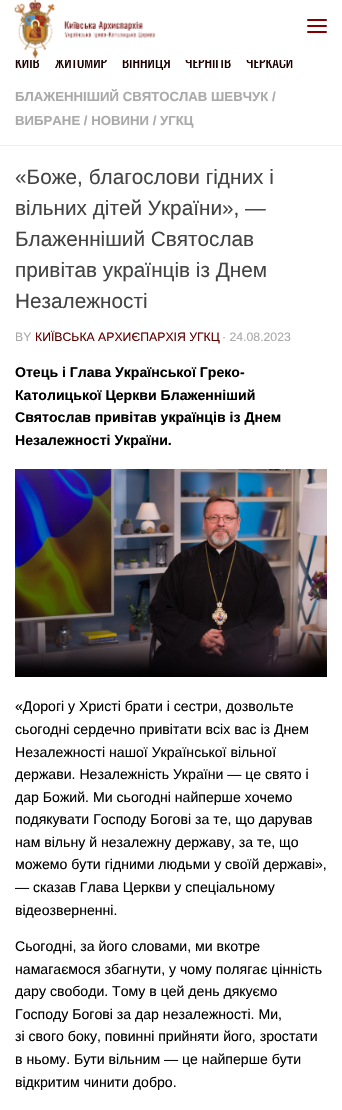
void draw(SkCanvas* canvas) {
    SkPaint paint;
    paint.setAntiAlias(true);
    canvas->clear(0xFFFFFFFF);
    SkFont font1(fontMgr->matchFamilyStyle("Oswald", SkFontStyle::Normal()), 13.5f);
    font1.setSubpixel(true);
    paint.setColor(0xFF1A0000);
    canvas->drawString("КИЇВ", 15, 68, font1, paint);
    canvas->drawString("ЖИТОМИР", 55, 68, font1, paint);
    canvas->drawString("ВІННИЦЯ", 122, 68, font1, paint);
    canvas->drawString("ЧЕРНІГІВ", 185, 68, font1, paint);
    canvas->drawString("ЧЕРКАСИ", 246, 68, font1, paint);
    paint.setColor(0xFFFFFFFF);
    canvas->drawRect(SkRect::MakeXYWH(15, 53, 278, 7), paint);
    canvas->drawImageRect(SkImages::DeferredFromEncodedData(SkData::MakeFromFileName("img1.png")), SkRect::MakeXYWH(13, 0, 143, 60), SkSamplingOptions());
    paint.setColor(0xFF840000);
    canvas->drawRoundRect(SkRect::MakeXYWH(307, 19, 20, 2), 1, 1, paint);
    canvas->drawRoundRect(SkRect::MakeXYWH(307, 25, 20, 2), 1, 1, paint);
    canvas->drawRoundRect(SkRect::MakeXYWH(307, 31, 20, 2), 1, 1, paint);
    paint.setColor(0xFFEEEEEE);
    canvas->drawRect(SkRect::MakeXYWH(0, 145, 342, 1), paint);
    SkFont font2(fontMgr->matchFamilyStyle("Liberation Sans", SkFontStyle::Bold()), 13.2f);
    font2.setSubpixel(true);
    paint.setColor(0xFFAAAAAA);
    canvas->drawString("БЛАЖЕННІШИЙ СВЯТОСЛАВ ШЕВЧУК /", 15, 101, font2, paint);
    canvas->drawString("ВИБРАНЕ / НОВИНИ / УГКЦ", 15, 125, font2, paint);
    SkFont font3(fontMgr->matchFamilyStyle("Liberation Sans", SkFontStyle::Normal()), 20.75f);
    font3.setSubpixel(true);
    paint.setColor(0xFF444444);
    canvas->drawString("«Боже, благослови гідних і", 15, 184, font3, paint);
    canvas->drawString("вільних дітей України», —", 15, 215, font3, paint);
    canvas->drawString("Блаженніший Святослав", 15, 246, font3, paint);
    canvas->drawString("привітав українців із Днем", 15, 277, font3, paint);
    canvas->drawString("Незалежності", 15, 308, font3, paint);
    SkFont font4(fontMgr->matchFamilyStyle("Liberation Sans", SkFontStyle::Normal()), 12.25f);
    font4.setSubpixel(true);
    paint.setColor(0xFFAAAAAA);
    canvas->drawString("BY", 15, 341, font4, paint);
    paint.setColor(0xFF600000);
    canvas->drawString("КИЇВСЬКА АРХИЄПАРХІЯ УГКЦ", 35, 341, font4, paint);
    paint.setColor(0xFFAAAAAA);
    canvas->drawString("· 24.08.2023", 222, 341, font4, paint);
    SkFont font5(fontMgr->matchFamilyStyle("Liberation Sans", SkFontStyle::Bold()), 14.1f);
    font5.setSubpixel(true);
    paint.setColor(0xFF000000);
    canvas->drawString("Отець і Глава Української Греко-", 15, 377, font5, paint);
    canvas->drawString("Католицької Церкви Блаженніший", 15, 400, font5, paint);
    canvas->drawString("Святослав привітав українців із Днем", 15, 422, font5, paint);
    canvas->drawString("Незалежності України.", 15, 445, font5, paint);
    canvas->drawImageRect(SkImages::DeferredFromEncodedData(SkData::MakeFromFileName("img2.png")), SkRect::MakeXYWH(15, 469, 312, 208), SkSamplingOptions());
    SkFont font6(fontMgr->matchFamilyStyle("Liberation Sans", SkFontStyle::Normal()), 14.1f);
    font6.setSubpixel(true);
    canvas->drawString("«Дорогі у Христі брати і сестри, дозвольте", 15, 711, font6, paint);
    canvas->drawString("сьогодні сердечно привітати всіх вас із Днем", 15, 734, font6, paint);
    canvas->drawString("Незалежності нашої Української вільної", 15, 757, font6, paint);
    canvas->drawString("держави. Незалежність України — це свято і", 15, 779, font6, paint);
    canvas->drawString("дар Божий. Ми сьогодні найперше хочемо", 15, 802, font6, paint);
    canvas->drawString("подякувати Господу Богові за те, що дарував", 15, 824, font6, paint);
    canvas->drawString("нам вільну й незалежну державу, за те, що", 15, 847, font6, paint);
    canvas->drawString("можемо бути гідними людьми у своїй державі»,", 15, 869, font6, paint);
    canvas->drawString("— сказав Глава Церкви у спеціальному", 15, 892, font6, paint);
    canvas->drawString("відеозверненні.", 15, 915, font6, paint);
    canvas->drawString("Сьогодні, за його словами, ми вкотре", 15, 951, font6, paint);
    canvas->drawString("намагаємося збагнути, у чому полягає цінність", 15, 974, font6, paint);
    canvas->drawString("дару свободи. Тому в цей день дякуємо", 15, 996, font6, paint);
    canvas->drawString("Господу Богові за дар незалежності. Ми,", 15, 1019, font6, paint);
    canvas->drawString("зі свого боку, повинні прийняти його, зростати", 15, 1041, font6, paint);
    canvas->drawString("в ньому. Бути вільним — це найперше бути", 15, 1064, font6, paint);
    canvas->drawString("відкритим чинити добро.", 15, 1087, font6, paint);
}
